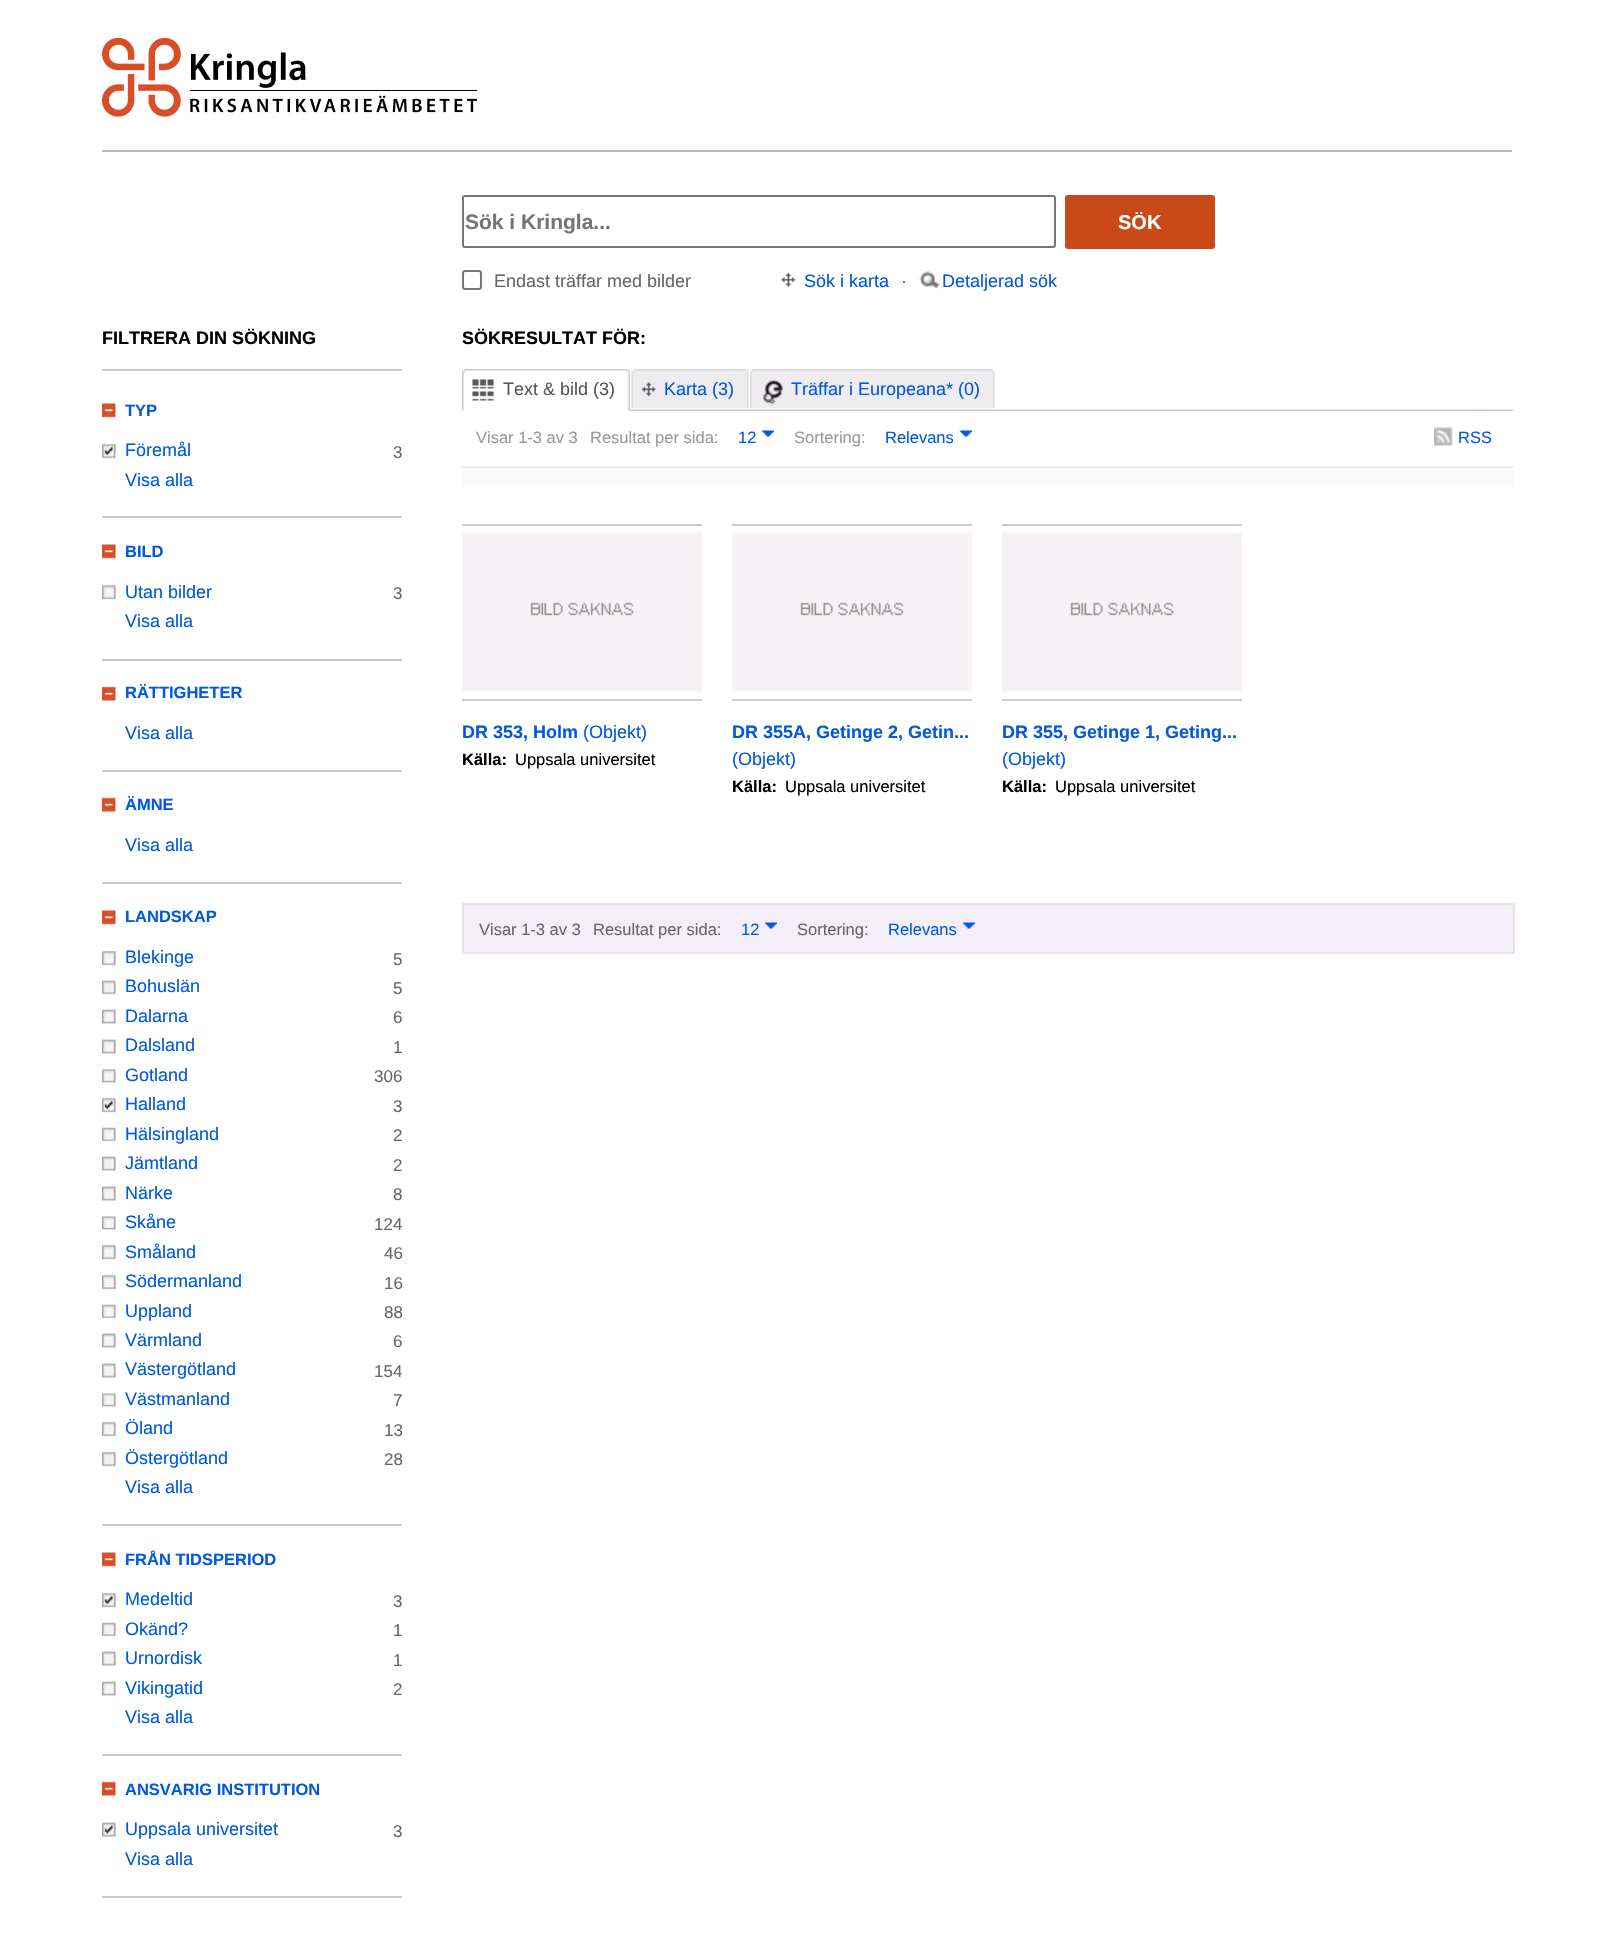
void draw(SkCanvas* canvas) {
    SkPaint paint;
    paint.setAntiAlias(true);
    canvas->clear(0xFFFFFFFF);
    paint.setColor(0xFFBABABA);
    canvas->drawRect(SkRect::MakeXYWH(102, 150, 1410, 2), paint);
    canvas->drawImageRect(SkImages::DeferredFromEncodedData(SkData::MakeFromFileName("img1.png")), SkRect::MakeXYWH(102, 38, 375, 79), SkSamplingOptions());
    paint.setStyle(SkPaint::kStroke_Style);
    paint.setStrokeWidth(2);
    paint.setColor(0xFF767676);
    canvas->drawRoundRect(SkRect::MakeXYWH(463, 196, 592, 51), 2, 2, paint);
    SkFont font1(fontMgr->matchFamilyStyle("Liberation Sans", SkFontStyle::Bold()), 21);
    font1.setSubpixel(true);
    paint.setStyle(SkPaint::kFill_Style);
    paint.setColor(0xFF757575);
    canvas->drawString("Sök i Kringla...", 465, 229, font1, paint);
    paint.setColor(0xFFC94A18);
    canvas->drawRoundRect(SkRect::MakeXYWH(1065, 195, 150, 54), 3, 3, paint);
    SkFont font2(fontMgr->matchFamilyStyle("Liberation Sans", SkFontStyle::Bold()), 20);
    font2.setSubpixel(true);
    paint.setColor(0xFFFFFFFF);
    canvas->drawString("SÖK", 1118, 229, font2, paint);
    paint.setStyle(SkPaint::kStroke_Style);
    paint.setColor(0xFF767676);
    canvas->drawRoundRect(SkRect::MakeXYWH(463, 271, 18, 18), 2, 2, paint);
    SkFont font3(fontMgr->matchFamilyStyle("Liberation Sans", SkFontStyle::Normal()), 18);
    font3.setSubpixel(true);
    paint.setStyle(SkPaint::kFill_Style);
    paint.setColor(0xFF666666);
    canvas->drawString("Endast träffar med bilder", 494, 287, font3, paint);
    canvas->drawImageRect(SkImages::DeferredFromEncodedData(SkData::MakeFromFileName("img2.png")), SkRect::MakeXYWH(781, 272, 15, 15), SkSamplingOptions());
    paint.setColor(0xFF0059DF);
    canvas->drawString("Sök i karta", 804, 287, font3, paint);
    paint.setColor(0xFF585858);
    canvas->drawString("·", 901, 287, font3, paint);
    canvas->drawImageRect(SkImages::DeferredFromEncodedData(SkData::MakeFromFileName("img3.png")), SkRect::MakeXYWH(919, 271, 21, 18), SkSamplingOptions());
    paint.setColor(0xFF0059DF);
    canvas->drawString("Detaljerad sök", 942, 287, font3, paint);
    paint.setColor(0xFFCBCACA);
    canvas->drawRect(SkRect::MakeXYWH(102, 369, 300, 2), paint);
    SkFont font4(fontMgr->matchFamilyStyle("Liberation Sans", SkFontStyle::Bold()), 18);
    font4.setSubpixel(true);
    paint.setColor(0xFF000000);
    canvas->drawString("FILTRERA DIN SÖKNING", 102, 344, font4, paint);
    paint.setColor(0xFFCBCACA);
    canvas->drawRect(SkRect::MakeXYWH(102, 516, 300, 2), paint);
    canvas->drawImageRect(SkImages::DeferredFromEncodedData(SkData::MakeFromFileName("img4.png")), SkRect::MakeXYWH(102, 403, 14, 15), SkSamplingOptions());
    SkFont font5(fontMgr->matchFamilyStyle("Liberation Sans", SkFontStyle::Bold()), 16.5f);
    font5.setSubpixel(true);
    paint.setColor(0xFF0059DF);
    canvas->drawString("TYP", 125, 416, font5, paint);
    canvas->drawImageRect(SkImages::DeferredFromEncodedData(SkData::MakeFromFileName("img5.png")), SkRect::MakeXYWH(102, 443, 14, 16), SkSamplingOptions());
    canvas->drawString("Föremål", 125, 456, font3, paint);
    SkFont font6(fontMgr->matchFamilyStyle("Liberation Sans", SkFontStyle::Normal()), 17);
    font6.setSubpixel(true);
    paint.setColor(0xFF666666);
    canvas->drawString("3", 393, 458, font6, paint);
    paint.setColor(0xFF0059DF);
    canvas->drawString("Visa alla", 125, 486, font3, paint);
    paint.setColor(0xFFCBCACA);
    canvas->drawRect(SkRect::MakeXYWH(102, 659, 300, 2), paint);
    canvas->drawImageRect(SkImages::DeferredFromEncodedData(SkData::MakeFromFileName("img6.png")), SkRect::MakeXYWH(102, 544, 14, 15), SkSamplingOptions());
    paint.setColor(0xFF0059DF);
    canvas->drawString("BILD", 125, 557, font5, paint);
    canvas->drawImageRect(SkImages::DeferredFromEncodedData(SkData::MakeFromFileName("img7.png")), SkRect::MakeXYWH(102, 584, 14, 16), SkSamplingOptions());
    canvas->drawString("Utan bilder", 125, 598, font3, paint);
    paint.setColor(0xFF666666);
    canvas->drawString("3", 393, 599, font6, paint);
    paint.setColor(0xFF0059DF);
    canvas->drawString("Visa alla", 125, 627, font3, paint);
    paint.setColor(0xFFCBCACA);
    canvas->drawRect(SkRect::MakeXYWH(102, 770, 300, 2), paint);
    canvas->drawImageRect(SkImages::DeferredFromEncodedData(SkData::MakeFromFileName("img8.png")), SkRect::MakeXYWH(102, 686, 14, 15), SkSamplingOptions());
    paint.setColor(0xFF0059DF);
    canvas->drawString("RÄTTIGHETER", 125, 698, font5, paint);
    canvas->drawString("Visa alla", 125, 739, font3, paint);
    paint.setColor(0xFFCBCACA);
    canvas->drawRect(SkRect::MakeXYWH(102, 882, 300, 2), paint);
    canvas->drawImageRect(SkImages::DeferredFromEncodedData(SkData::MakeFromFileName("img9.png")), SkRect::MakeXYWH(102, 797, 14, 15), SkSamplingOptions());
    paint.setColor(0xFF0059DF);
    canvas->drawString("ÄMNE", 125, 810, font5, paint);
    canvas->drawString("Visa alla", 125, 851, font3, paint);
    paint.setColor(0xFFCBCACA);
    canvas->drawRect(SkRect::MakeXYWH(102, 1524, 300, 2), paint);
    canvas->drawImageRect(SkImages::DeferredFromEncodedData(SkData::MakeFromFileName("img10.png")), SkRect::MakeXYWH(102, 910, 14, 15), SkSamplingOptions());
    paint.setColor(0xFF0059DF);
    canvas->drawString("LANDSKAP", 125, 922, font5, paint);
    canvas->drawImageRect(SkImages::DeferredFromEncodedData(SkData::MakeFromFileName("img7.png")), SkRect::MakeXYWH(102, 950, 14, 16), SkSamplingOptions());
    canvas->drawString("Blekinge", 125, 963, font3, paint);
    paint.setColor(0xFF666666);
    canvas->drawString("5", 393, 965, font6, paint);
    canvas->drawImageRect(SkImages::DeferredFromEncodedData(SkData::MakeFromFileName("img11.png")), SkRect::MakeXYWH(102, 980, 14, 15), SkSamplingOptions());
    paint.setColor(0xFF0059DF);
    canvas->drawString("Bohuslän", 125, 992, font3, paint);
    paint.setColor(0xFF666666);
    canvas->drawString("5", 393, 994, font6, paint);
    canvas->drawImageRect(SkImages::DeferredFromEncodedData(SkData::MakeFromFileName("img12.png")), SkRect::MakeXYWH(102, 1009, 14, 15), SkSamplingOptions());
    paint.setColor(0xFF0059DF);
    canvas->drawString("Dalarna", 125, 1022, font3, paint);
    paint.setColor(0xFF666666);
    canvas->drawString("6", 393, 1023, font6, paint);
    canvas->drawImageRect(SkImages::DeferredFromEncodedData(SkData::MakeFromFileName("img12.png")), SkRect::MakeXYWH(102, 1039, 14, 15), SkSamplingOptions());
    paint.setColor(0xFF0059DF);
    canvas->drawString("Dalsland", 125, 1051, font3, paint);
    paint.setColor(0xFF666666);
    canvas->drawString("1", 393, 1053, font6, paint);
    canvas->drawImageRect(SkImages::DeferredFromEncodedData(SkData::MakeFromFileName("img13.png")), SkRect::MakeXYWH(102, 1069, 14, 14), SkSamplingOptions());
    paint.setColor(0xFF0059DF);
    canvas->drawString("Gotland", 125, 1081, font3, paint);
    paint.setColor(0xFF666666);
    canvas->drawString("306", 374, 1082, font6, paint);
    canvas->drawImageRect(SkImages::DeferredFromEncodedData(SkData::MakeFromFileName("img5.png")), SkRect::MakeXYWH(102, 1097, 14, 16), SkSamplingOptions());
    paint.setColor(0xFF0059DF);
    canvas->drawString("Halland", 125, 1110, font3, paint);
    paint.setColor(0xFF666666);
    canvas->drawString("3", 393, 1112, font6, paint);
    canvas->drawImageRect(SkImages::DeferredFromEncodedData(SkData::MakeFromFileName("img11.png")), SkRect::MakeXYWH(102, 1127, 14, 15), SkSamplingOptions());
    paint.setColor(0xFF0059DF);
    canvas->drawString("Hälsingland", 125, 1140, font3, paint);
    paint.setColor(0xFF666666);
    canvas->drawString("2", 393, 1141, font6, paint);
    canvas->drawImageRect(SkImages::DeferredFromEncodedData(SkData::MakeFromFileName("img12.png")), SkRect::MakeXYWH(102, 1156, 14, 15), SkSamplingOptions());
    paint.setColor(0xFF0059DF);
    canvas->drawString("Jämtland", 125, 1169, font3, paint);
    paint.setColor(0xFF666666);
    canvas->drawString("2", 393, 1171, font6, paint);
    canvas->drawImageRect(SkImages::DeferredFromEncodedData(SkData::MakeFromFileName("img12.png")), SkRect::MakeXYWH(102, 1186, 14, 15), SkSamplingOptions());
    paint.setColor(0xFF0059DF);
    canvas->drawString("Närke", 125, 1199, font3, paint);
    paint.setColor(0xFF666666);
    canvas->drawString("8", 393, 1200, font6, paint);
    canvas->drawImageRect(SkImages::DeferredFromEncodedData(SkData::MakeFromFileName("img13.png")), SkRect::MakeXYWH(102, 1216, 14, 14), SkSamplingOptions());
    paint.setColor(0xFF0059DF);
    canvas->drawString("Skåne", 125, 1228, font3, paint);
    paint.setColor(0xFF666666);
    canvas->drawString("124", 374, 1230, font6, paint);
    canvas->drawImageRect(SkImages::DeferredFromEncodedData(SkData::MakeFromFileName("img7.png")), SkRect::MakeXYWH(102, 1244, 14, 16), SkSamplingOptions());
    paint.setColor(0xFF0059DF);
    canvas->drawString("Småland", 125, 1258, font3, paint);
    paint.setColor(0xFF666666);
    canvas->drawString("46", 384, 1259, font6, paint);
    canvas->drawImageRect(SkImages::DeferredFromEncodedData(SkData::MakeFromFileName("img7.png")), SkRect::MakeXYWH(102, 1274, 14, 16), SkSamplingOptions());
    paint.setColor(0xFF0059DF);
    canvas->drawString("Södermanland", 125, 1287, font3, paint);
    paint.setColor(0xFF666666);
    canvas->drawString("16", 384, 1289, font6, paint);
    canvas->drawImageRect(SkImages::DeferredFromEncodedData(SkData::MakeFromFileName("img11.png")), SkRect::MakeXYWH(102, 1304, 14, 15), SkSamplingOptions());
    paint.setColor(0xFF0059DF);
    canvas->drawString("Uppland", 125, 1317, font3, paint);
    paint.setColor(0xFF666666);
    canvas->drawString("88", 384, 1318, font6, paint);
    canvas->drawImageRect(SkImages::DeferredFromEncodedData(SkData::MakeFromFileName("img12.png")), SkRect::MakeXYWH(102, 1333, 14, 15), SkSamplingOptions());
    paint.setColor(0xFF0059DF);
    canvas->drawString("Värmland", 125, 1346, font3, paint);
    paint.setColor(0xFF666666);
    canvas->drawString("6", 393, 1347, font6, paint);
    canvas->drawImageRect(SkImages::DeferredFromEncodedData(SkData::MakeFromFileName("img12.png")), SkRect::MakeXYWH(102, 1363, 14, 15), SkSamplingOptions());
    paint.setColor(0xFF0059DF);
    canvas->drawString("Västergötland", 125, 1375, font3, paint);
    paint.setColor(0xFF666666);
    canvas->drawString("154", 374, 1377, font6, paint);
    canvas->drawImageRect(SkImages::DeferredFromEncodedData(SkData::MakeFromFileName("img13.png")), SkRect::MakeXYWH(102, 1393, 14, 14), SkSamplingOptions());
    paint.setColor(0xFF0059DF);
    canvas->drawString("Västmanland", 125, 1405, font3, paint);
    paint.setColor(0xFF666666);
    canvas->drawString("7", 393, 1406, font6, paint);
    canvas->drawImageRect(SkImages::DeferredFromEncodedData(SkData::MakeFromFileName("img7.png")), SkRect::MakeXYWH(102, 1421, 14, 16), SkSamplingOptions());
    paint.setColor(0xFF0059DF);
    canvas->drawString("Öland", 125, 1434, font3, paint);
    paint.setColor(0xFF666666);
    canvas->drawString("13", 384, 1436, font6, paint);
    canvas->drawImageRect(SkImages::DeferredFromEncodedData(SkData::MakeFromFileName("img7.png")), SkRect::MakeXYWH(102, 1451, 14, 16), SkSamplingOptions());
    paint.setColor(0xFF0059DF);
    canvas->drawString("Östergötland", 125, 1464, font3, paint);
    paint.setColor(0xFF666666);
    canvas->drawString("28", 384, 1465, font6, paint);
    paint.setColor(0xFF0059DF);
    canvas->drawString("Visa alla", 125, 1493, font3, paint);
    paint.setColor(0xFFCBCACA);
    canvas->drawRect(SkRect::MakeXYWH(102, 1754, 300, 2), paint);
    canvas->drawImageRect(SkImages::DeferredFromEncodedData(SkData::MakeFromFileName("img10.png")), SkRect::MakeXYWH(102, 1552, 14, 15), SkSamplingOptions());
    paint.setColor(0xFF0059DF);
    canvas->drawString("FRÅN TIDSPERIOD", 125, 1565, font5, paint);
    canvas->drawImageRect(SkImages::DeferredFromEncodedData(SkData::MakeFromFileName("img5.png")), SkRect::MakeXYWH(102, 1592, 14, 16), SkSamplingOptions());
    canvas->drawString("Medeltid", 125, 1605, font3, paint);
    paint.setColor(0xFF666666);
    canvas->drawString("3", 393, 1607, font6, paint);
    canvas->drawImageRect(SkImages::DeferredFromEncodedData(SkData::MakeFromFileName("img11.png")), SkRect::MakeXYWH(102, 1622, 14, 15), SkSamplingOptions());
    paint.setColor(0xFF0059DF);
    canvas->drawString("Okänd?", 125, 1635, font3, paint);
    paint.setColor(0xFF666666);
    canvas->drawString("1", 393, 1636, font6, paint);
    canvas->drawImageRect(SkImages::DeferredFromEncodedData(SkData::MakeFromFileName("img12.png")), SkRect::MakeXYWH(102, 1651, 14, 15), SkSamplingOptions());
    paint.setColor(0xFF0059DF);
    canvas->drawString("Urnordisk", 125, 1664, font3, paint);
    paint.setColor(0xFF666666);
    canvas->drawString("1", 393, 1666, font6, paint);
    canvas->drawImageRect(SkImages::DeferredFromEncodedData(SkData::MakeFromFileName("img12.png")), SkRect::MakeXYWH(102, 1681, 14, 15), SkSamplingOptions());
    paint.setColor(0xFF0059DF);
    canvas->drawString("Vikingatid", 125, 1694, font3, paint);
    paint.setColor(0xFF666666);
    canvas->drawString("2", 393, 1695, font6, paint);
    paint.setColor(0xFF0059DF);
    canvas->drawString("Visa alla", 125, 1723, font3, paint);
    paint.setColor(0xFFCBCACA);
    canvas->drawRect(SkRect::MakeXYWH(102, 1896, 300, 2), paint);
    canvas->drawImageRect(SkImages::DeferredFromEncodedData(SkData::MakeFromFileName("img8.png")), SkRect::MakeXYWH(102, 1781, 14, 15), SkSamplingOptions());
    paint.setColor(0xFF0059DF);
    canvas->drawString("ANSVARIG INSTITUTION", 125, 1795, font5, paint);
    canvas->drawImageRect(SkImages::DeferredFromEncodedData(SkData::MakeFromFileName("img14.png")), SkRect::MakeXYWH(102, 1822, 14, 15), SkSamplingOptions());
    canvas->drawString("Uppsala universitet", 125, 1835, font3, paint);
    paint.setColor(0xFF666666);
    canvas->drawString("3", 393, 1837, font6, paint);
    paint.setColor(0xFF0059DF);
    canvas->drawString("Visa alla", 125, 1865, font3, paint);
    paint.setColor(0xFF000000);
    canvas->drawString("SÖKRESULTAT FÖR:", 462, 344, font4, paint);
    canvas->drawImageRect(SkImages::DeferredFromEncodedData(SkData::MakeFromFileName("img15.png")), SkRect::MakeXYWH(630, 409, 884, 2), SkSamplingOptions());
    canvas->drawImageRect(SkImages::DeferredFromEncodedData(SkData::MakeFromFileName("img16.png")), SkRect::MakeXYWH(462, 369, 164, 42), SkSamplingOptions());
    canvas->drawImageRect(SkImages::DeferredFromEncodedData(SkData::MakeFromFileName("img17.png")), SkRect::MakeXYWH(626, 369, 4, 42), SkSamplingOptions());
    canvas->drawImageRect(SkImages::DeferredFromEncodedData(SkData::MakeFromFileName("img18.png")), SkRect::MakeXYWH(472, 379, 22, 22), SkSamplingOptions());
    paint.setColor(0xFF585858);
    canvas->drawString("Text & bild (3)", 503, 395, font3, paint);
    canvas->drawImageRect(SkImages::DeferredFromEncodedData(SkData::MakeFromFileName("img19.png")), SkRect::MakeXYWH(631, 369, 118, 40), SkSamplingOptions());
    canvas->drawImageRect(SkImages::DeferredFromEncodedData(SkData::MakeFromFileName("img20.png")), SkRect::MakeXYWH(745, 369, 4, 40), SkSamplingOptions());
    canvas->drawImageRect(SkImages::DeferredFromEncodedData(SkData::MakeFromFileName("img21.png")), SkRect::MakeXYWH(642, 382, 14, 15), SkSamplingOptions());
    paint.setColor(0xFF0059DF);
    canvas->drawString("Karta (3)", 664, 395, font3, paint);
    canvas->drawImageRect(SkImages::DeferredFromEncodedData(SkData::MakeFromFileName("img22.png")), SkRect::MakeXYWH(750, 369, 245, 40), SkSamplingOptions());
    canvas->drawImageRect(SkImages::DeferredFromEncodedData(SkData::MakeFromFileName("img20.png")), SkRect::MakeXYWH(991, 369, 4, 40), SkSamplingOptions());
    canvas->drawImageRect(SkImages::DeferredFromEncodedData(SkData::MakeFromFileName("img23.png")), SkRect::MakeXYWH(763, 379, 20, 26), SkSamplingOptions());
    canvas->drawString("Träffar i Europeana* (0)", 791, 395, font3, paint);
    canvas->drawImageRect(SkImages::DeferredFromEncodedData(SkData::MakeFromFileName("img24.png")), SkRect::MakeXYWH(462, 466, 1052, 21), SkSamplingOptions());
    SkFont font7(fontMgr->matchFamilyStyle("Liberation Sans", SkFontStyle::Normal()), 16.5f);
    font7.setSubpixel(true);
    paint.setColor(0xFF999999);
    canvas->drawString("Visar 1-3 av 3", 476, 443, font7, paint);
    canvas->drawString("Resultat per sida:", 590, 443, font7, paint);
    canvas->drawImageRect(SkImages::DeferredFromEncodedData(SkData::MakeFromFileName("img25.png")), SkRect::MakeXYWH(761, 430, 13, 7), SkSamplingOptions());
    paint.setColor(0xFF0059DF);
    canvas->drawString("12", 738, 443, font7, paint);
    paint.setColor(0xFF999999);
    canvas->drawString("Sortering:", 794, 443, font7, paint);
    canvas->drawImageRect(SkImages::DeferredFromEncodedData(SkData::MakeFromFileName("img26.png")), SkRect::MakeXYWH(959, 430, 13, 7), SkSamplingOptions());
    paint.setColor(0xFF0059DF);
    canvas->drawString("Relevans", 885, 443, font7, paint);
    canvas->drawImageRect(SkImages::DeferredFromEncodedData(SkData::MakeFromFileName("img27.png")), SkRect::MakeXYWH(1434, 427, 19, 19), SkSamplingOptions());
    canvas->drawString("RSS", 1458, 443, font7, paint);
    paint.setColor(0xFFD0CCCC);
    canvas->drawRect(SkRect::MakeXYWH(462, 524, 240, 2), paint);
    canvas->drawImageRect(SkImages::DeferredFromEncodedData(SkData::MakeFromFileName("img28.png")), SkRect::MakeXYWH(462, 532, 240, 160), SkSamplingOptions());
    canvas->drawRect(SkRect::MakeXYWH(462, 699, 240, 2), paint);
    paint.setColor(0xFF0059DF);
    canvas->drawString("DR 353, Holm", 462, 738, font4, paint);
    canvas->drawString("(Objekt)", 583, 738, font3, paint);
    paint.setColor(0xFF000000);
    canvas->drawString("Källa:", 462, 765, font5, paint);
    canvas->drawString("Uppsala universitet", 515, 765, font7, paint);
    paint.setColor(0xFFD0CCCC);
    canvas->drawRect(SkRect::MakeXYWH(732, 524, 240, 2), paint);
    canvas->drawImageRect(SkImages::DeferredFromEncodedData(SkData::MakeFromFileName("img28.png")), SkRect::MakeXYWH(732, 532, 240, 160), SkSamplingOptions());
    canvas->drawRect(SkRect::MakeXYWH(732, 699, 240, 2), paint);
    paint.setColor(0xFF0059DF);
    canvas->drawString("DR 355A, Getinge 2, Getin...", 732, 738, font4, paint);
    canvas->drawString("(Objekt)", 732, 765, font3, paint);
    paint.setColor(0xFF000000);
    canvas->drawString("Källa:", 732, 792, font5, paint);
    canvas->drawString("Uppsala universitet", 785, 792, font7, paint);
    paint.setColor(0xFFD0CCCC);
    canvas->drawRect(SkRect::MakeXYWH(1002, 524, 240, 2), paint);
    canvas->drawImageRect(SkImages::DeferredFromEncodedData(SkData::MakeFromFileName("img28.png")), SkRect::MakeXYWH(1002, 532, 240, 160), SkSamplingOptions());
    canvas->drawRect(SkRect::MakeXYWH(1002, 699, 240, 2), paint);
    paint.setColor(0xFF0059DF);
    canvas->drawString("DR 355, Getinge 1, Geting...", 1002, 738, font4, paint);
    canvas->drawString("(Objekt)", 1002, 765, font3, paint);
    paint.setColor(0xFF000000);
    canvas->drawString("Källa:", 1002, 792, font5, paint);
    canvas->drawString("Uppsala universitet", 1055, 792, font7, paint);
    paint.setColor(0xFFF4EFF7);
    canvas->drawRect(SkRect::MakeXYWH(463, 904, 1051, 49), paint);
    paint.setStyle(SkPaint::kStroke_Style);
    paint.setColor(0xFFE7E3E8);
    canvas->drawRect(SkRect::MakeXYWH(463, 904, 1051, 49), paint);
    paint.setStyle(SkPaint::kFill_Style);
    paint.setColor(0xFF666666);
    canvas->drawString("Visar 1-3 av 3", 479, 935, font7, paint);
    canvas->drawString("Resultat per sida:", 593, 935, font7, paint);
    canvas->drawImageRect(SkImages::DeferredFromEncodedData(SkData::MakeFromFileName("img29.png")), SkRect::MakeXYWH(764, 922, 13, 7), SkSamplingOptions());
    paint.setColor(0xFF0059DF);
    canvas->drawString("12", 741, 935, font7, paint);
    paint.setColor(0xFF666666);
    canvas->drawString("Sortering:", 797, 935, font7, paint);
    canvas->drawImageRect(SkImages::DeferredFromEncodedData(SkData::MakeFromFileName("img30.png")), SkRect::MakeXYWH(962, 922, 13, 7), SkSamplingOptions());
    paint.setColor(0xFF0059DF);
    canvas->drawString("Relevans", 888, 935, font7, paint);
}
